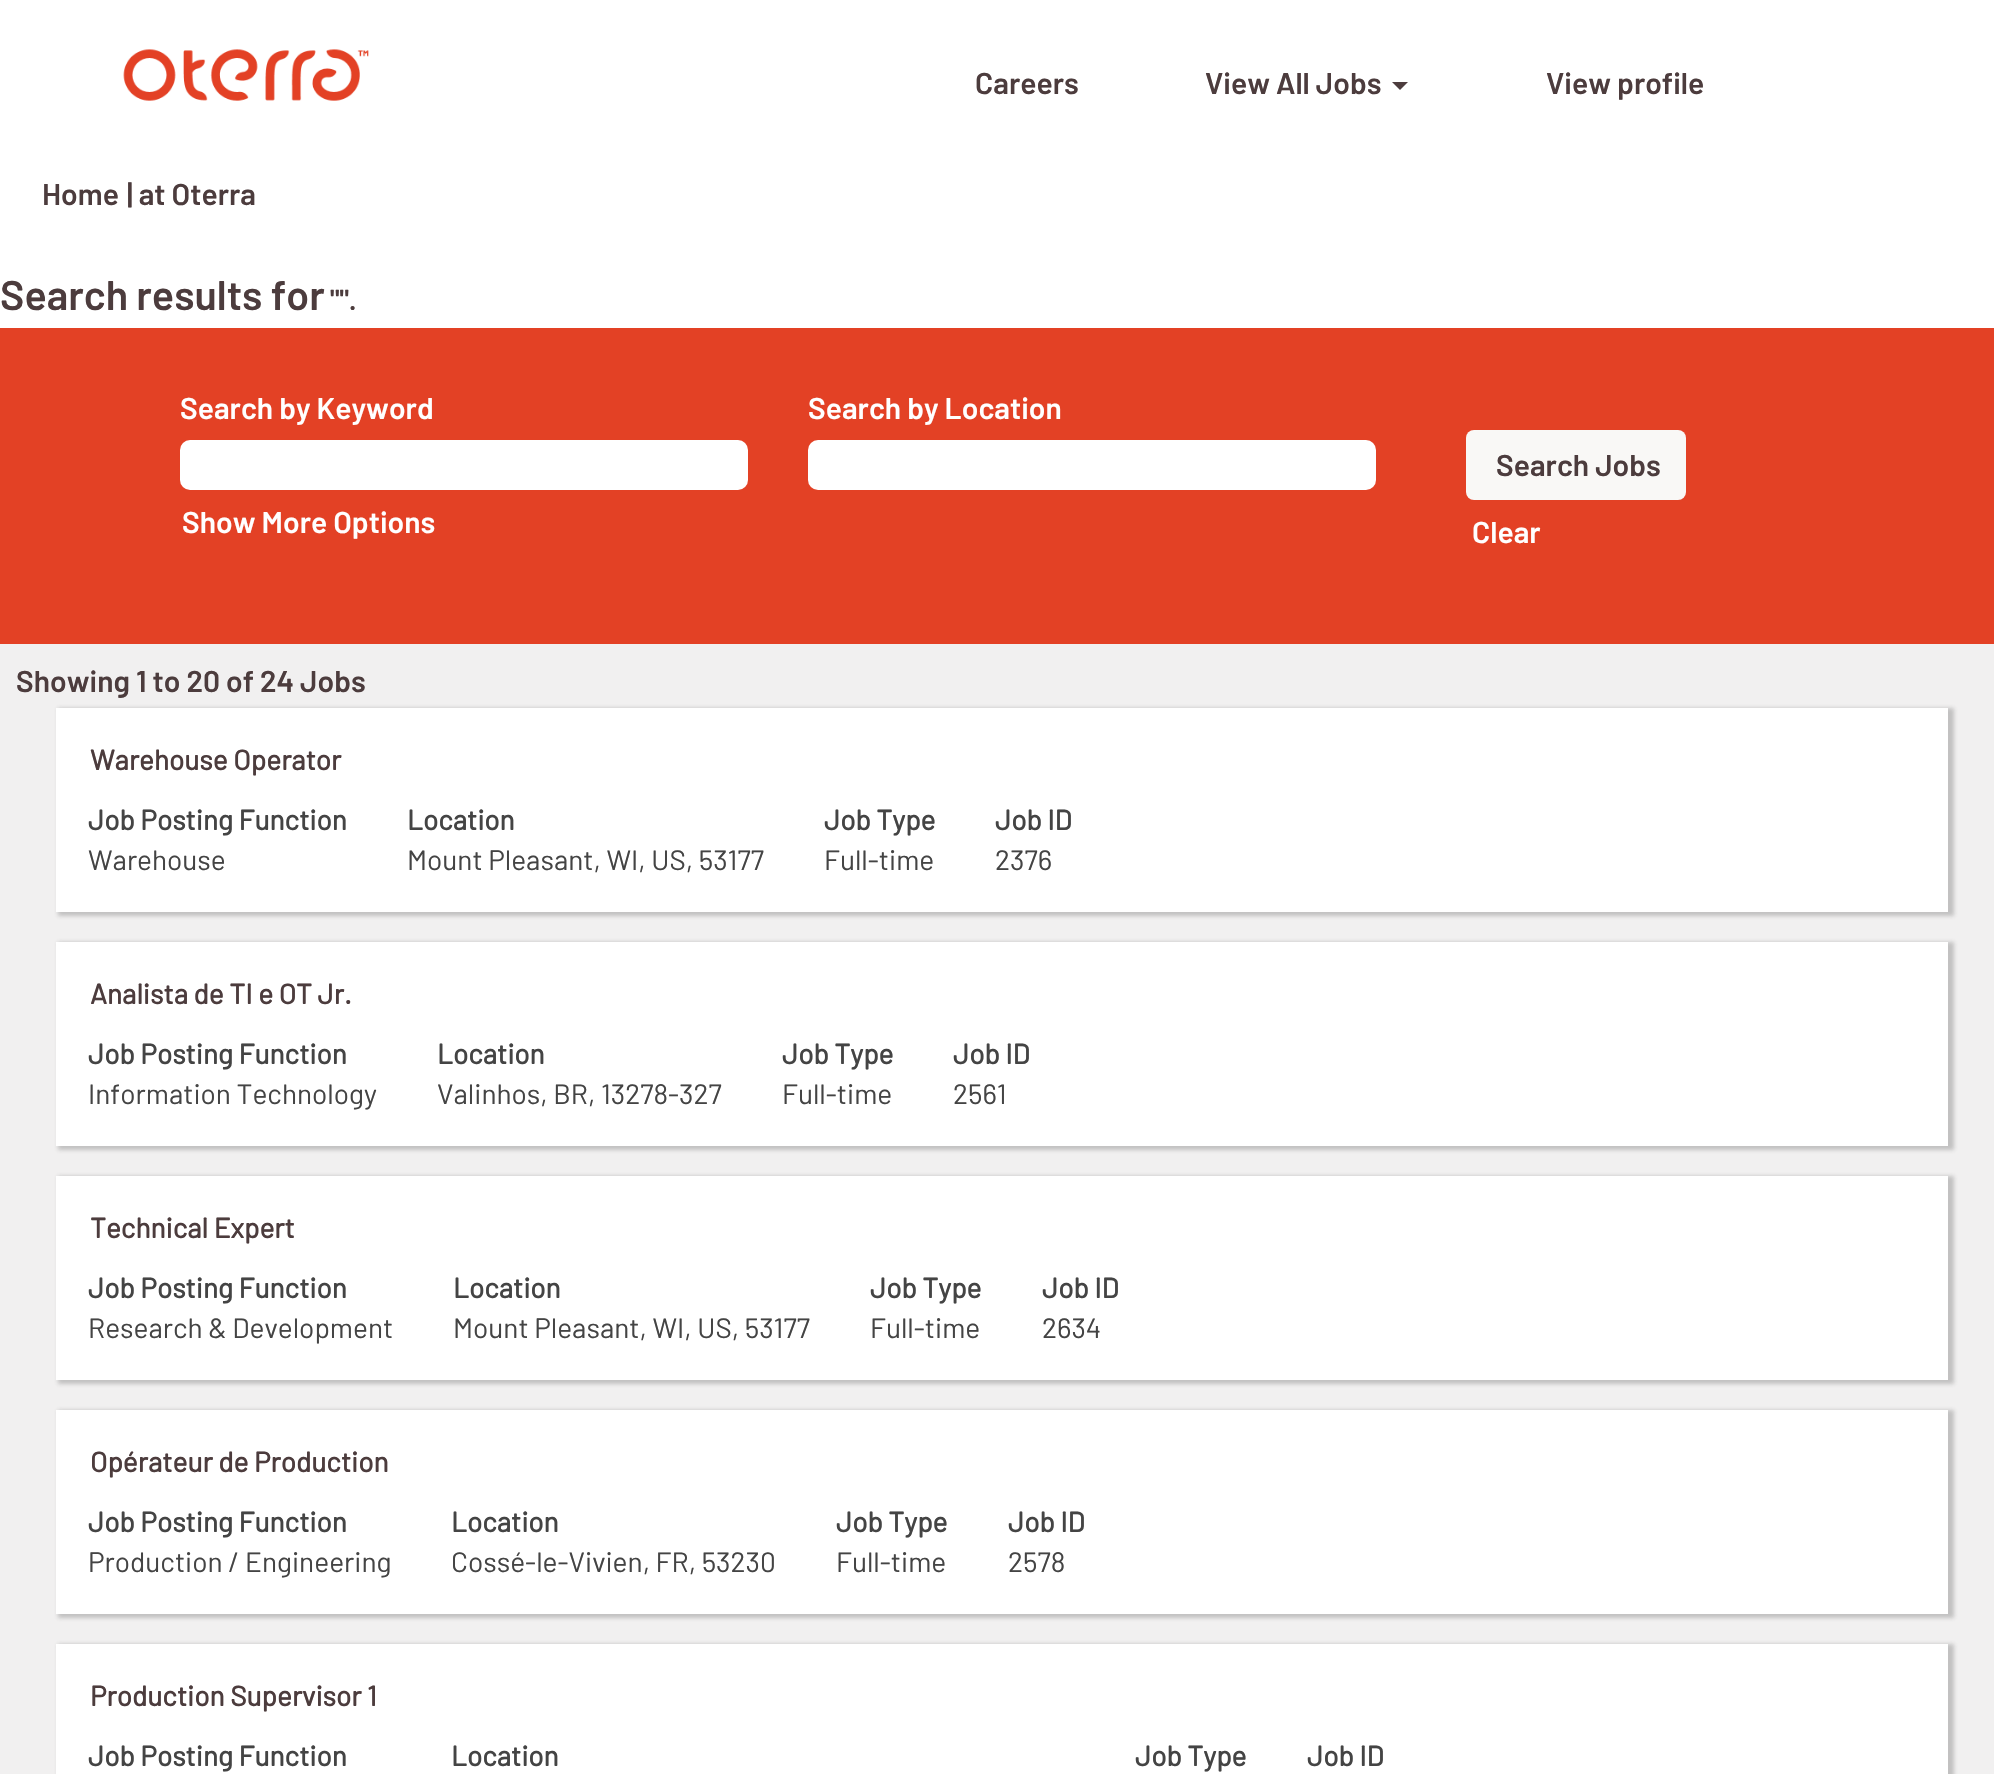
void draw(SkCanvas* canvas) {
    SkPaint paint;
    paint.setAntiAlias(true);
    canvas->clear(0xFFFFFFFF);
    canvas->drawImageRect(SkImages::DeferredFromEncodedData(SkData::MakeFromFileName("img1.png")), SkRect::MakeXYWH(123, 49, 246, 52), SkSamplingOptions());
    SkFont font1(fontMgr->matchFamilyStyle("Barlow", SkFontStyle(600, SkFontStyle::kNormal_Width, SkFontStyle::kUpright_Slant)), 30);
    font1.setSubpixel(true);
    paint.setColor(0xFF4C3C3D);
    canvas->drawString("Careers", 975, 94, font1, paint);
    canvas->drawString("View All Jobs", 1205, 94, font1, paint);
    canvas->drawPath(SkPathBuilder().moveTo(1392, 82).lineTo(1408, 82).lineTo(1400, 90).close().detach(), paint);
    canvas->drawString("View profile", 1546, 94, font1, paint);
    canvas->drawString("Home", 42, 205, font1, paint);
    canvas->drawString("| at Oterra", 127, 205, font1, paint);
    SkFont font2(fontMgr->matchFamilyStyle("Barlow", SkFontStyle(600, SkFontStyle::kNormal_Width, SkFontStyle::kUpright_Slant)), 41.25f);
    font2.setSubpixel(true);
    canvas->drawString("Search results for", 0, 310, font2, paint);
    SkFont font3(fontMgr->matchFamilyStyle("Barlow", SkFontStyle(600, SkFontStyle::kNormal_Width, SkFontStyle::kUpright_Slant)), 29);
    font3.setSubpixel(true);
    canvas->drawString("\"\".", 330, 310, font3, paint);
    paint.setColor(0xFFE34125);
    canvas->drawRect(SkRect::MakeXYWH(0, 328, 1994, 316), paint);
    paint.setColor(0xFFFFFFFF);
    canvas->drawString("Search by Keyword", 180, 419, font1, paint);
    canvas->drawRoundRect(SkRect::MakeXYWH(180, 440, 568, 50), 10, 10, paint);
    canvas->drawString("Search by Location", 808, 419, font1, paint);
    canvas->drawRoundRect(SkRect::MakeXYWH(808, 440, 568, 50), 10, 10, paint);
    canvas->drawString("Show More Options", 182, 533, font1, paint);
    paint.setColor(0xFFF9F8F6);
    canvas->drawRoundRect(SkRect::MakeXYWH(1466, 430, 220, 70), 8, 8, paint);
    paint.setColor(0xFF4C3C3D);
    canvas->drawString("Search Jobs", 1496, 476, font1, paint);
    paint.setColor(0xFFFFFFFF);
    canvas->drawString("Clear", 1472, 543, font1, paint);
    paint.setColor(0xFFF1F0F0);
    canvas->drawRect(SkRect::MakeXYWH(0, 644, 1994, 1130), paint);
    paint.setColor(0xFF4C3C3D);
    canvas->drawString("Showing 1 to 20 of 24 Jobs", 16, 692, font1, paint);
    paint.setColor(0x45444444);
    paint.setMaskFilter(SkMaskFilter::MakeBlur(kNormal_SkBlurStyle, 2));
    canvas->drawRect(SkRect::MakeXYWH(58, 708, 1896, 208), paint);
    paint.setMaskFilter(nullptr);
    paint.setColor(0xFFFFFFFF);
    canvas->drawRect(SkRect::MakeXYWH(56, 708, 1892, 204), paint);
    SkFont font4(fontMgr->matchFamilyStyle("Barlow", SkFontStyle::Bold()), 28);
    font4.setSubpixel(true);
    paint.setColor(0xFF4C3C3D);
    canvas->drawString("Warehouse Operator", 90, 770, font4, paint);
    paint.setColor(0xFF444444);
    canvas->drawString("Job Posting Function", 88, 830, font4, paint);
    SkFont font5(fontMgr->matchFamilyStyle("Barlow", SkFontStyle::Normal()), 28);
    font5.setSubpixel(true);
    canvas->drawString("Warehouse", 88, 870, font5, paint);
    canvas->drawString("Location", 407, 830, font4, paint);
    canvas->drawString("Mount Pleasant, WI, US, 53177", 407, 870, font5, paint);
    canvas->drawString("Job Type", 824, 830, font4, paint);
    canvas->drawString("Full-time", 824, 870, font5, paint);
    canvas->drawString("Job ID", 995, 830, font4, paint);
    canvas->drawString("2376", 995, 870, font5, paint);
    paint.setColor(0x45444444);
    paint.setMaskFilter(SkMaskFilter::MakeBlur(kNormal_SkBlurStyle, 2));
    canvas->drawRect(SkRect::MakeXYWH(58, 942, 1896, 208), paint);
    paint.setMaskFilter(nullptr);
    paint.setColor(0xFFFFFFFF);
    canvas->drawRect(SkRect::MakeXYWH(56, 942, 1892, 204), paint);
    paint.setColor(0xFF4C3C3D);
    canvas->drawString("Analista de TI e OT Jr.", 90, 1004, font4, paint);
    paint.setColor(0xFF444444);
    canvas->drawString("Job Posting Function", 88, 1064, font4, paint);
    canvas->drawString("Information Technology", 88, 1104, font5, paint);
    canvas->drawString("Location", 437, 1064, font4, paint);
    canvas->drawString("Valinhos, BR, 13278-327", 437, 1104, font5, paint);
    canvas->drawString("Job Type", 782, 1064, font4, paint);
    canvas->drawString("Full-time", 782, 1104, font5, paint);
    canvas->drawString("Job ID", 953, 1064, font4, paint);
    canvas->drawString("2561", 953, 1104, font5, paint);
    paint.setColor(0x45444444);
    paint.setMaskFilter(SkMaskFilter::MakeBlur(kNormal_SkBlurStyle, 2));
    canvas->drawRect(SkRect::MakeXYWH(58, 1176, 1896, 208), paint);
    paint.setMaskFilter(nullptr);
    paint.setColor(0xFFFFFFFF);
    canvas->drawRect(SkRect::MakeXYWH(56, 1176, 1892, 204), paint);
    paint.setColor(0xFF4C3C3D);
    canvas->drawString("Technical Expert", 90, 1238, font4, paint);
    paint.setColor(0xFF444444);
    canvas->drawString("Job Posting Function", 88, 1298, font4, paint);
    canvas->drawString("Research & Development", 88, 1338, font5, paint);
    canvas->drawString("Location", 453, 1298, font4, paint);
    canvas->drawString("Mount Pleasant, WI, US, 53177", 453, 1338, font5, paint);
    canvas->drawString("Job Type", 870, 1298, font4, paint);
    canvas->drawString("Full-time", 870, 1338, font5, paint);
    canvas->drawString("Job ID", 1042, 1298, font4, paint);
    canvas->drawString("2634", 1042, 1338, font5, paint);
    paint.setColor(0x45444444);
    paint.setMaskFilter(SkMaskFilter::MakeBlur(kNormal_SkBlurStyle, 2));
    canvas->drawRect(SkRect::MakeXYWH(58, 1410, 1896, 208), paint);
    paint.setMaskFilter(nullptr);
    paint.setColor(0xFFFFFFFF);
    canvas->drawRect(SkRect::MakeXYWH(56, 1410, 1892, 204), paint);
    paint.setColor(0xFF4C3C3D);
    canvas->drawString("Opérateur de Production", 90, 1472, font4, paint);
    paint.setColor(0xFF444444);
    canvas->drawString("Job Posting Function", 88, 1532, font4, paint);
    canvas->drawString("Production / Engineering", 88, 1572, font5, paint);
    canvas->drawString("Location", 451, 1532, font4, paint);
    canvas->drawString("Cossé-le-Vivien, FR, 53230", 451, 1572, font5, paint);
    canvas->drawString("Job Type", 836, 1532, font4, paint);
    canvas->drawString("Full-time", 836, 1572, font5, paint);
    canvas->drawString("Job ID", 1008, 1532, font4, paint);
    canvas->drawString("2578", 1008, 1572, font5, paint);
    paint.setColor(0x45444444);
    paint.setMaskFilter(SkMaskFilter::MakeBlur(kNormal_SkBlurStyle, 2));
    canvas->drawRect(SkRect::MakeXYWH(58, 1644, 1896, 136), paint);
    paint.setMaskFilter(nullptr);
    paint.setColor(0xFFFFFFFF);
    canvas->drawRect(SkRect::MakeXYWH(56, 1644, 1892, 130), paint);
    paint.setColor(0xFF4C3C3D);
    canvas->drawString("Production Supervisor 1", 90, 1706, font4, paint);
    paint.setColor(0xFF444444);
    canvas->drawString("Job Posting Function", 88, 1766, font4, paint);
    canvas->drawString("Location", 451, 1766, font4, paint);
    canvas->drawString("Job Type", 1135, 1766, font4, paint);
    canvas->drawString("Job ID", 1307, 1766, font4, paint);
}
